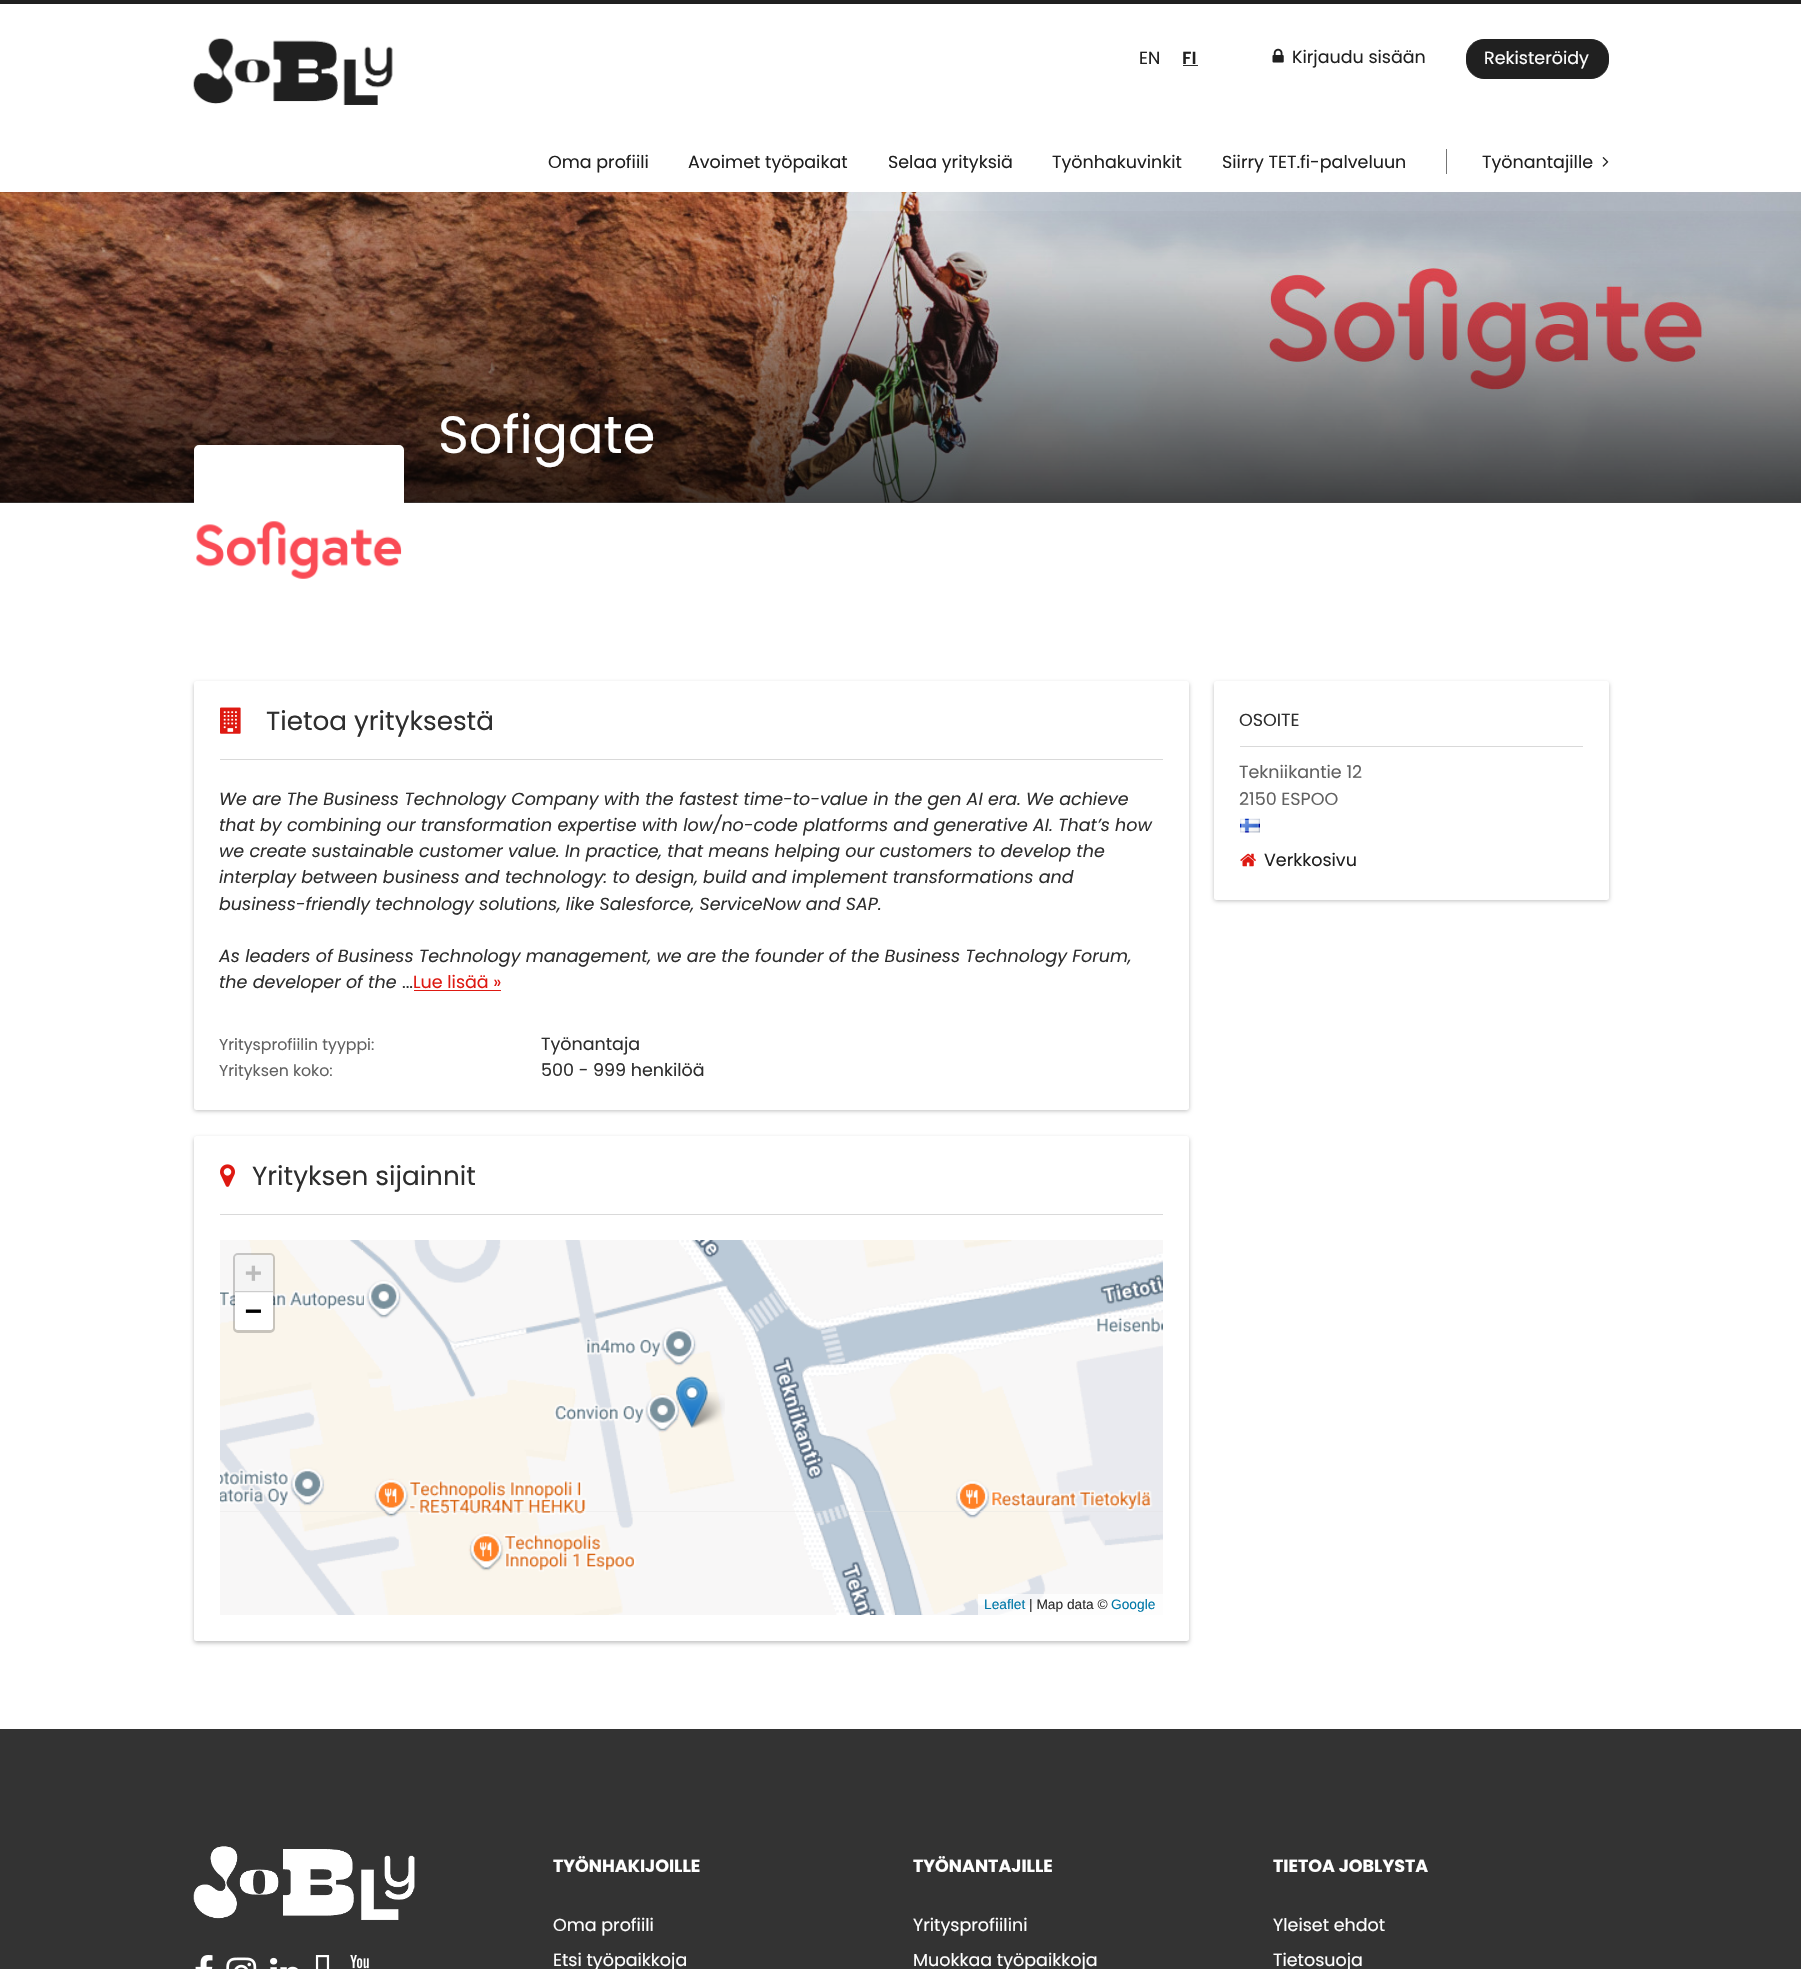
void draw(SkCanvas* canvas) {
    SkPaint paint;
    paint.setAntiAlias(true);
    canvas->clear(0xFFFFFFFF);
    paint.setColor(0xFF202020);
    canvas->drawRect(SkRect::MakeXYWH(0, 0, 1801, 4), paint);
    paint.setColor(0x40000000);
    paint.setMaskFilter(SkMaskFilter::MakeBlur(kNormal_SkBlurStyle, 2));
    canvas->drawRect(SkRect::MakeXYWH(0, 5, 1801, 189), paint);
    paint.setMaskFilter(nullptr);
    paint.setColor(0xFFFFFFFF);
    canvas->drawRect(SkRect::MakeXYWH(0, 4, 1801, 188), paint);
    canvas->drawImageRect(SkImages::DeferredFromEncodedData(SkData::MakeFromFileName("img1.png")), SkRect::MakeXYWH(193, 38, 200, 67), SkSamplingOptions());
    SkFont font1(fontMgr->matchFamilyStyle("Poppins", SkFontStyle::Normal()), 17.5f);
    font1.setSubpixel(true);
    paint.setColor(0xFF202020);
    canvas->drawString("EN", 1139, 64, font1, paint);
    SkFont font2(fontMgr->matchFamilyStyle("Poppins", SkFontStyle(600, SkFontStyle::kNormal_Width, SkFontStyle::kUpright_Slant)), 17.5f);
    font2.setSubpixel(true);
    canvas->drawString("FI", 1182, 64, font2, paint);
    paint.setColor(0xFF2E2E2E);
    canvas->drawRect(SkRect::MakeXYWH(1183, 65, 15, 1), paint);
    canvas->drawImageRect(SkImages::DeferredFromEncodedData(SkData::MakeFromFileName("img2.png")), SkRect::MakeXYWH(1272, 48, 12, 15), SkSamplingOptions());
    paint.setColor(0xFF202020);
    canvas->drawString("Kirjaudu sisään", 1292, 63, font1, paint);
    canvas->drawRoundRect(SkRect::MakeXYWH(1466.5f, 39.5f, 142, 39), 17.5f, 17.5f, paint);
    paint.setStyle(SkPaint::kStroke_Style);
    paint.setStrokeWidth(1);
    canvas->drawRoundRect(SkRect::MakeXYWH(1466.5f, 39.5f, 142, 39), 17.5f, 17.5f, paint);
    paint.setStyle(SkPaint::kFill_Style);
    paint.setColor(0xFFFFFFFF);
    canvas->drawString("Rekisteröidy", 1484, 64, font1, paint);
    paint.setColor(0xFF202020);
    canvas->drawString("Oma profiili", 548, 168, font1, paint);
    canvas->drawString("Avoimet työpaikat", 688, 168, font1, paint);
    canvas->drawString("Selaa yrityksiä", 888, 168, font1, paint);
    canvas->drawString("Työnhakuvinkit", 1052, 168, font1, paint);
    canvas->drawString("Siirry TET.fi-palveluun", 1222, 168, font1, paint);
    paint.setColor(0xFF757575);
    canvas->drawRect(SkRect::MakeXYWH(1446, 149, 1, 25), paint);
    paint.setColor(0xFF202020);
    canvas->drawString("Työnantajille", 1482, 168, font1, paint);
    canvas->drawImageRect(SkImages::DeferredFromEncodedData(SkData::MakeFromFileName("img3.png")), SkRect::MakeXYWH(1602, 157, 7, 10), SkSamplingOptions());
    canvas->drawImageRect(SkImages::DeferredFromEncodedData(SkData::MakeFromFileName("img4.png")), SkRect::MakeXYWH(0, 192, 1801, 311), SkSamplingOptions());
    {
        const SkColor colors[] = {0x00000000, 0x1A000000, 0xB3000000};
        const float stops[] = {0, 0.28f, 1};
        const SkPoint ends[] = {{901, 192}, {901, 503}};
        paint.setShader(SkGradientShader::MakeLinear(ends, colors, stops, 3, SkTileMode::kClamp));
        paint.setAlpha(255);
    }
    canvas->drawRect(SkRect::MakeXYWH(0, 211, 1801, 292), paint);
    paint.setShader(nullptr);
    paint.setColor(0xFFFFFFFF);
    canvas->drawRoundRect(SkRect::MakeXYWH(195.5f, 446.5f, 207, 207), 3.5f, 3.5f, paint);
    paint.setStyle(SkPaint::kStroke_Style);
    paint.setStrokeWidth(3);
    canvas->drawRoundRect(SkRect::MakeXYWH(195.5f, 446.5f, 207, 207), 3.5f, 3.5f, paint);
    canvas->drawImageRect(SkImages::DeferredFromEncodedData(SkData::MakeFromFileName("img5.png")), SkRect::MakeXYWH(196, 521, 206, 58), SkSamplingOptions());
    SkFont font3(fontMgr->matchFamilyStyle("Poppins", SkFontStyle::Normal()), 52.5f);
    font3.setSubpixel(true);
    paint.setStyle(SkPaint::kFill_Style);
    canvas->drawString("Sofigate", 438, 453, font3, paint);
    paint.setColor(0x40000000);
    paint.setMaskFilter(SkMaskFilter::MakeBlur(kNormal_SkBlurStyle, 2));
    canvas->drawRoundRect(SkRect::MakeXYWH(194, 683, 995, 428), 2.5f, 2.5f, paint);
    paint.setMaskFilter(nullptr);
    paint.setColor(0xFFFFFFFF);
    canvas->drawRoundRect(SkRect::MakeXYWH(194, 681, 995, 429), 2.5f, 2.5f, paint);
    paint.setColor(0xFFD9D9D9);
    canvas->drawRect(SkRect::MakeXYWH(220, 759, 943, 1), paint);
    canvas->drawImageRect(SkImages::DeferredFromEncodedData(SkData::MakeFromFileName("img6.png")), SkRect::MakeXYWH(220, 707, 21, 27), SkSamplingOptions());
    SkFont font4(fontMgr->matchFamilyStyle("Poppins", SkFontStyle::Normal()), 26.25f);
    font4.setSubpixel(true);
    paint.setColor(0xFF2E2E2E);
    canvas->drawString("Tietoa yrityksestä", 266, 730, font4, paint);
    SkFont font5(fontMgr->matchFamilyStyle("Poppins", SkFontStyle::Italic()), 17.5f);
    font5.setSubpixel(true);
    canvas->drawString("We are The Business Technology Company with the fastest time-to-value in the gen AI era. We achieve", 219, 805, font5, paint);
    canvas->drawString("that by combining our transformation expertise with low/no-code platforms and generative AI. That’s how", 219, 831, font5, paint);
    canvas->drawString("we create sustainable customer value. In practice, that means helping our customers to develop the", 219, 857, font5, paint);
    canvas->drawString("interplay between business and technology: to design, build and implement transformations and", 219, 883, font5, paint);
    canvas->drawString("business-friendly technology solutions, like Salesforce, ServiceNow and SAP.", 219, 910, font5, paint);
    canvas->drawString("As leaders of Business Technology management, we are the founder of the Business Technology Forum,", 219, 962, font5, paint);
    canvas->drawString("the developer of the", 219, 988, font5, paint);
    canvas->drawString("...", 402, 988, font1, paint);
    paint.setColor(0xFFDE1912);
    canvas->drawRect(SkRect::MakeXYWH(414, 990, 87, 1), paint);
    canvas->drawString("Lue lisää »", 413, 988, font1, paint);
    SkFont font6(fontMgr->matchFamilyStyle("Poppins", SkFontStyle::Normal()), 15.75f);
    font6.setSubpixel(true);
    paint.setColor(0xFF616161);
    canvas->drawString("Yritysprofiilin tyyppi:", 219, 1050, font6, paint);
    paint.setColor(0xFF2E2E2E);
    canvas->drawString("Työnantaja", 541, 1050, font1, paint);
    paint.setColor(0xFF616161);
    canvas->drawString("Yrityksen koko:", 219, 1076, font6, paint);
    paint.setColor(0xFF2E2E2E);
    canvas->drawString("500 - 999 henkilöä", 541, 1076, font1, paint);
    paint.setColor(0x40000000);
    paint.setMaskFilter(SkMaskFilter::MakeBlur(kNormal_SkBlurStyle, 2));
    canvas->drawRoundRect(SkRect::MakeXYWH(194, 1138, 995, 505), 2.5f, 2.5f, paint);
    paint.setMaskFilter(nullptr);
    paint.setColor(0xFFFFFFFF);
    canvas->drawRoundRect(SkRect::MakeXYWH(194, 1136, 995, 505), 2.5f, 2.5f, paint);
    paint.setColor(0xFFD9D9D9);
    canvas->drawRect(SkRect::MakeXYWH(220, 1214, 943, 1), paint);
    canvas->drawImageRect(SkImages::DeferredFromEncodedData(SkData::MakeFromFileName("img7.png")), SkRect::MakeXYWH(220, 1164, 15, 23), SkSamplingOptions());
    paint.setColor(0xFF2E2E2E);
    canvas->drawString("Yrityksen sijainnit", 252, 1185, font4, paint);
    paint.setColor(0xFFDDDDDD);
    canvas->drawRect(SkRect::MakeXYWH(220, 1511, 943, 1), paint);
    canvas->drawImageRect(SkImages::DeferredFromEncodedData(SkData::MakeFromFileName("img8.png")), SkRect::MakeXYWH(220, 1240, 143, 271), SkSamplingOptions());
    canvas->drawImageRect(SkImages::DeferredFromEncodedData(SkData::MakeFromFileName("img9.png")), SkRect::MakeXYWH(363, 1240, 320, 271), SkSamplingOptions());
    canvas->drawImageRect(SkImages::DeferredFromEncodedData(SkData::MakeFromFileName("img10.png")), SkRect::MakeXYWH(682, 1240, 321, 271), SkSamplingOptions());
    canvas->drawImageRect(SkImages::DeferredFromEncodedData(SkData::MakeFromFileName("img11.png")), SkRect::MakeXYWH(1002, 1240, 161, 271), SkSamplingOptions());
    canvas->drawImageRect(SkImages::DeferredFromEncodedData(SkData::MakeFromFileName("img13.png")), SkRect::MakeXYWH(362, 1511, 321, 104), SkSamplingOptions());
    canvas->drawImageRect(SkImages::DeferredFromEncodedData(SkData::MakeFromFileName("img12.png")), SkRect::MakeXYWH(220, 1511, 143, 104), SkSamplingOptions());
    canvas->drawImageRect(SkImages::DeferredFromEncodedData(SkData::MakeFromFileName("img14.png")), SkRect::MakeXYWH(683, 1511, 320, 104), SkSamplingOptions());
    canvas->drawImageRect(SkImages::DeferredFromEncodedData(SkData::MakeFromFileName("img15.png")), SkRect::MakeXYWH(1002, 1511, 161, 104), SkSamplingOptions());
    canvas->drawImageRect(SkImages::DeferredFromEncodedData(SkData::MakeFromFileName("img17.png")), SkRect::MakeXYWH(687, 1392, 38, 36), SkSamplingOptions());
    canvas->drawImageRect(SkImages::DeferredFromEncodedData(SkData::MakeFromFileName("img16.png")), SkRect::MakeXYWH(676, 1376, 32, 52), SkSamplingOptions());
    paint.setStyle(SkPaint::kStroke_Style);
    paint.setColor(0x33000000);
    canvas->drawRoundRect(SkRect::MakeXYWH(234.5f, 1254.5f, 39, 77), 3.5f, 3.5f, paint);
    paint.setStyle(SkPaint::kFill_Style);
    paint.setColor(0xFFF4F4F4);
    canvas->drawPath(SkPathBuilder().moveTo(237.5f, 1255).lineTo(270.5f, 1255).cubicTo(272, 1255, 273, 1256, 273, 1257.5f).lineTo(273, 1293).lineTo(235, 1293).lineTo(235, 1257.5f).cubicTo(235, 1256, 236, 1255, 237.5f, 1255).close().detach(), paint);
    paint.setColor(0xFFCCCCCC);
    canvas->drawRect(SkRect::MakeXYWH(235, 1291, 38, 1), paint);
    SkFont font7(fontMgr->matchFamilyStyle("DejaVu Sans Mono", SkFontStyle::Bold()), 28);
    font7.setSubpixel(true);
    paint.setColor(0xFFBBBBBB);
    canvas->drawString("+", 245, 1282, font7, paint);
    paint.setColor(0xFFFFFFFF);
    canvas->drawPath(SkPathBuilder().moveTo(235, 1293).lineTo(273, 1293).lineTo(273, 1327.5f).cubicTo(273, 1329, 272, 1330, 270.5f, 1330).lineTo(237.5f, 1330).cubicTo(236, 1330, 235, 1329, 235, 1327.5f).close().detach(), paint);
    paint.setColor(0xFF000000);
    canvas->drawString("−", 245, 1320, font7, paint);
    paint.setColor(0xB3FFFFFF);
    canvas->drawRect(SkRect::MakeXYWH(978, 1594, 185, 21), paint);
    SkFont font8(fontMgr->matchFamilyStyle("Liberation Sans", SkFontStyle::Normal()), 13.75f);
    font8.setSubpixel(true);
    paint.setColor(0xFF0078A8);
    canvas->drawString("Leaflet", 984, 1609, font8, paint);
    paint.setColor(0xFF2E2E2E);
    canvas->drawString("| Map data ©", 1029, 1609, font8, paint);
    paint.setColor(0xFF0078A8);
    canvas->drawString("Google", 1111, 1609, font8, paint);
    paint.setColor(0x40000000);
    paint.setMaskFilter(SkMaskFilter::MakeBlur(kNormal_SkBlurStyle, 2));
    canvas->drawRoundRect(SkRect::MakeXYWH(1214, 683, 395, 218), 2.5f, 2.5f, paint);
    paint.setMaskFilter(nullptr);
    paint.setColor(0xFFFFFFFF);
    canvas->drawRoundRect(SkRect::MakeXYWH(1214, 681, 395, 219), 2.5f, 2.5f, paint);
    paint.setColor(0xFFD9D9D9);
    canvas->drawRect(SkRect::MakeXYWH(1240, 746, 343, 1), paint);
    paint.setColor(0xFF2E2E2E);
    canvas->drawString("OSOITE", 1239, 726, font1, paint);
    paint.setColor(0xFF616161);
    canvas->drawString("Tekniikantie 12", 1239, 778, font1, paint);
    canvas->drawString("2150 ESPOO", 1239, 805, font1, paint);
    canvas->drawImageRect(SkImages::DeferredFromEncodedData(SkData::MakeFromFileName("img18.png")), SkRect::MakeXYWH(1240, 818, 20, 15), SkSamplingOptions());
    canvas->drawImageRect(SkImages::DeferredFromEncodedData(SkData::MakeFromFileName("img19.png")), SkRect::MakeXYWH(1240, 853, 16, 14), SkSamplingOptions());
    paint.setColor(0xFF202020);
    canvas->drawString("Verkkosivu", 1264, 866, font1, paint);
    paint.setColor(0xFF333333);
    canvas->drawRect(SkRect::MakeXYWH(0, 1729, 1801, 240), paint);
    canvas->drawImageRect(SkImages::DeferredFromEncodedData(SkData::MakeFromFileName("img20.png")), SkRect::MakeXYWH(193, 1846, 222, 74), SkSamplingOptions());
    canvas->drawImageRect(SkImages::DeferredFromEncodedData(SkData::MakeFromFileName("img21.png")), SkRect::MakeXYWH(195, 1955, 18, 14), SkSamplingOptions());
    canvas->drawImageRect(SkImages::DeferredFromEncodedData(SkData::MakeFromFileName("img22.png")), SkRect::MakeXYWH(226, 1957, 31, 12), SkSamplingOptions());
    canvas->drawImageRect(SkImages::DeferredFromEncodedData(SkData::MakeFromFileName("img23.png")), SkRect::MakeXYWH(270, 1957, 28, 12), SkSamplingOptions());
    canvas->drawImageRect(SkImages::DeferredFromEncodedData(SkData::MakeFromFileName("img24.png")), SkRect::MakeXYWH(315, 1955, 15, 14), SkSamplingOptions());
    canvas->drawImageRect(SkImages::DeferredFromEncodedData(SkData::MakeFromFileName("img25.png")), SkRect::MakeXYWH(350, 1955, 19, 14), SkSamplingOptions());
    SkFont font9(fontMgr->matchFamilyStyle("Poppins", SkFontStyle::Bold()), 17.5f);
    font9.setSubpixel(true);
    paint.setColor(0xFFFFFFFF);
    canvas->drawString("TYÖNHAKIJOILLE", 553, 1872, font9, paint);
    canvas->drawString("Oma profiili", 553, 1931, font1, paint);
    canvas->drawString("Etsi työpaikkoja", 553, 1966, font1, paint);
    canvas->drawString("TYÖNANTAJILLE", 913, 1872, font9, paint);
    canvas->drawString("Yritysprofiilini", 913, 1931, font1, paint);
    canvas->drawString("Muokkaa työpaikkoja", 913, 1966, font1, paint);
    canvas->drawString("TIETOA JOBLYSTA", 1273, 1872, font9, paint);
    canvas->drawString("Yleiset ehdot", 1273, 1931, font1, paint);
    canvas->drawString("Tietosuoja", 1273, 1966, font1, paint);
}
